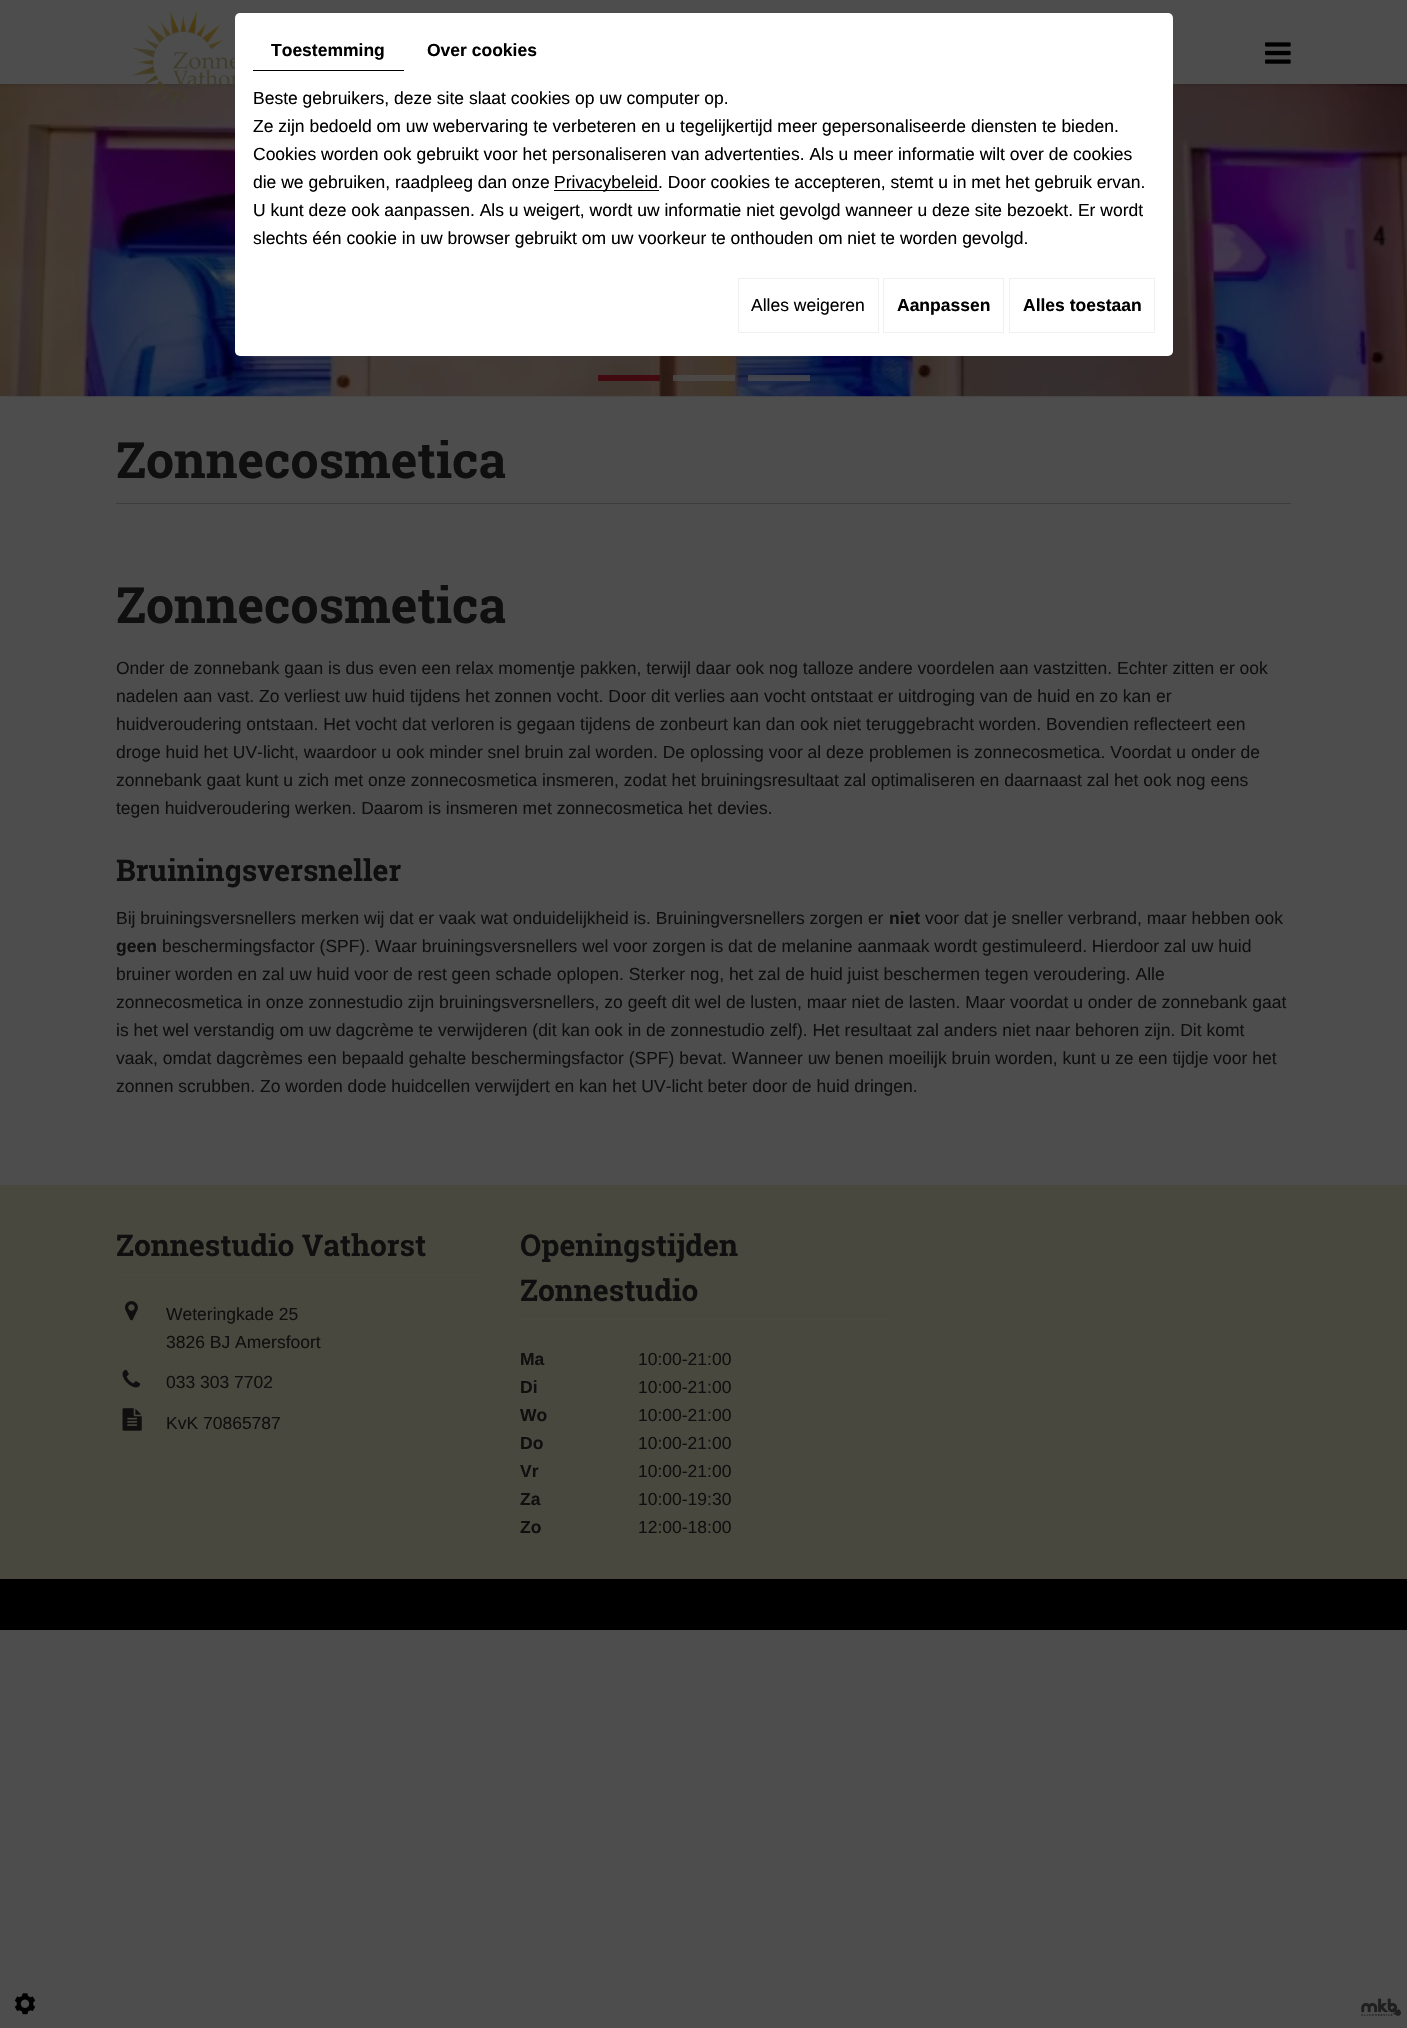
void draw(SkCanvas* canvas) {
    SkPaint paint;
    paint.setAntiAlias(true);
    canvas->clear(0xFF4D4D4D);
    canvas->drawImageRect(SkImages::DeferredFromEncodedData(SkData::MakeFromFileName("img3.png")), SkRect::MakeXYWH(0, 84, 1407, 313), SkSamplingOptions());
    paint.setColor(0x33000000);
    paint.setMaskFilter(SkMaskFilter::MakeBlur(kNormal_SkBlurStyle, 2));
    canvas->drawRect(SkRect::MakeXYWH(0, 0, 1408, 84), paint);
    paint.setMaskFilter(nullptr);
    paint.setColor(0xFF4D4D4D);
    canvas->drawRect(SkRect::MakeXYWH(0, 0, 1407, 84), paint);
    paint.setColor(0xFFFFFFFF);
    canvas->drawRoundRect(SkRect::MakeXYWH(235, 13, 938, 343), 5, 5, paint);
    paint.setColor(0xFF000000);
    canvas->drawRect(SkRect::MakeXYWH(253, 70, 151, 1), paint);
    SkFont font1(fontMgr->matchFamilyStyle("Liberation Sans", SkFontStyle::Bold()), 17.5f);
    font1.setSubpixel(true);
    canvas->drawString("Toestemming", 271, 56, font1, paint);
    canvas->drawString("Over cookies", 427, 56, font1, paint);
    SkFont font2(fontMgr->matchFamilyStyle("Liberation Sans", SkFontStyle::Normal()), 17.5f);
    font2.setSubpixel(true);
    canvas->drawString("Beste gebruikers, deze site slaat cookies op uw computer op.", 253, 104, font2, paint);
    canvas->drawString("Ze zijn bedoeld om uw webervaring te verbeteren en u tegelijkertijd meer gepersonaliseerde diensten te bieden.", 253, 132, font2, paint);
    canvas->drawString("Cookies worden ook gebruikt voor het personaliseren van advertenties. Als u meer informatie wilt over de cookies", 253, 160, font2, paint);
    canvas->drawString("die we gebruiken, raadpleeg dan onze", 253, 188, font2, paint);
    canvas->drawRect(SkRect::MakeXYWH(554, 190, 105, 1), paint);
    canvas->drawString("Privacybeleid. Door cookies te accepteren, stemt u in met het gebruik ervan.", 554, 188, font2, paint);
    canvas->drawString("U kunt deze ook aanpassen. Als u weigert, wordt uw informatie niet gevolgd wanneer u deze site bezoekt. Er wordt", 253, 216, font2, paint);
    canvas->drawString("slechts één cookie in uw browser gebruikt om uw voorkeur te onthouden om niet te worden gevolgd.", 253, 244, font2, paint);
    paint.setStyle(SkPaint::kStroke_Style);
    paint.setStrokeWidth(1);
    paint.setColor(0xFFF0F0F0);
    canvas->drawRect(SkRect::MakeXYWH(738.5f, 278.5f, 140, 54), paint);
    paint.setStyle(SkPaint::kFill_Style);
    paint.setColor(0xFF000000);
    canvas->drawString("Alles weigeren", 751, 311, font2, paint);
    paint.setStyle(SkPaint::kStroke_Style);
    paint.setColor(0xFFF0F0F0);
    canvas->drawRect(SkRect::MakeXYWH(883.5f, 278.5f, 120, 54), paint);
    paint.setStyle(SkPaint::kFill_Style);
    paint.setColor(0xFF000000);
    canvas->drawString("Aanpassen", 897, 311, font1, paint);
    paint.setStyle(SkPaint::kStroke_Style);
    paint.setColor(0xFFF0F0F0);
    canvas->drawRect(SkRect::MakeXYWH(1009.5f, 278.5f, 145, 54), paint);
    paint.setStyle(SkPaint::kFill_Style);
    paint.setColor(0xFF000000);
    canvas->drawString("Alles toestaan", 1023, 311, font1, paint);
    canvas->drawImageRect(SkImages::DeferredFromEncodedData(SkData::MakeFromFileName("img1.png")), SkRect::MakeXYWH(132, 10, 103, 103), SkSamplingOptions());
    canvas->drawImageRect(SkImages::DeferredFromEncodedData(SkData::MakeFromFileName("img2.png")), SkRect::MakeXYWH(1265, 42, 26, 22), SkSamplingOptions());
    paint.setColor(0xFF410910);
    canvas->drawRect(SkRect::MakeXYWH(598, 375, 62, 6), paint);
    paint.setColor(0xBF4D4D4D);
    canvas->drawRect(SkRect::MakeXYWH(673, 375, 62, 6), paint);
    canvas->drawRect(SkRect::MakeXYWH(748, 375, 62, 6), paint);
    paint.setColor(0xFF3D3D3D);
    canvas->drawRect(SkRect::MakeXYWH(116, 503, 1175, 1), paint);
    SkFont font3(fontMgr->matchFamilyStyle("Roboto Slab", SkFontStyle::Bold()), 50);
    font3.setSubpixel(true);
    paint.setColor(0xFF0F0F0F);
    canvas->drawString("Zonnecosmetica", 116, 478, font3, paint);
    canvas->drawString("Zonnecosmetica", 116, 623, font3, paint);
    canvas->drawString("Onder de zonnebank gaan is dus even een relax momentje pakken, terwijl daar ook nog talloze andere voordelen aan vastzitten. Echter zitten er ook", 116, 674, font2, paint);
    canvas->drawString("nadelen aan vast. Zo verliest uw huid tijdens het zonnen vocht. Door dit verlies aan vocht ontstaat er uitdroging van de huid en zo kan er", 116, 702, font2, paint);
    canvas->drawString("huidveroudering ontstaan. Het vocht dat verloren is gegaan tijdens de zonbeurt kan dan ook niet teruggebracht worden. Bovendien reflecteert een", 116, 730, font2, paint);
    canvas->drawString("droge huid het UV-licht, waardoor u ook minder snel bruin zal worden. De oplossing voor al deze problemen is zonnecosmetica. Voordat u onder de", 116, 758, font2, paint);
    canvas->drawString("zonnebank gaat kunt u zich met onze zonnecosmetica insmeren, zodat het bruiningsresultaat zal optimaliseren en daarnaast zal het ook nog eens", 116, 786, font2, paint);
    canvas->drawString("tegen huidveroudering werken. Daarom is insmeren met zonnecosmetica het devies.", 116, 814, font2, paint);
    SkFont font4(fontMgr->matchFamilyStyle("Roboto Slab", SkFontStyle::Bold()), 30);
    font4.setSubpixel(true);
    canvas->drawString("Bruiningsversneller", 116, 881, font4, paint);
    canvas->drawString("Bij bruiningsversnellers merken wij dat er vaak wat onduidelijkheid is. Bruiningversnellers zorgen er", 116, 924, font2, paint);
    canvas->drawString("niet", 889, 924, font1, paint);
    canvas->drawString("voor dat je sneller verbrand, maar hebben ook", 925, 924, font2, paint);
    canvas->drawString("geen", 116, 952, font1, paint);
    canvas->drawString("beschermingsfactor (SPF). Waar bruiningsversnellers wel voor zorgen is dat de melanine aanmaak wordt gestimuleerd. Hierdoor zal uw huid", 162, 952, font2, paint);
    canvas->drawString("bruiner worden en zal uw huid voor de rest geen schade oplopen. Sterker nog, het zal de huid juist beschermen tegen veroudering. Alle", 116, 980, font2, paint);
    canvas->drawString("zonnecosmetica in onze zonnestudio zijn bruiningsversnellers, zo geeft dit wel de lusten, maar niet de lasten. Maar voordat u onder de zonnebank gaat", 116, 1008, font2, paint);
    canvas->drawString("is het wel verstandig om uw dagcrème te verwijderen (dit kan ook in de zonnestudio zelf). Het resultaat zal anders niet naar behoren zijn. Dit komt", 116, 1036, font2, paint);
    canvas->drawString("vaak, omdat dagcrèmes een bepaald gehalte beschermingsfactor (SPF) bevat. Wanneer uw benen moeilijk bruin worden, kunt u ze een tijdje voor het", 116, 1064, font2, paint);
    canvas->drawString("zonnen scrubben. Zo worden dode huidcellen verwijdert en kan het UV-licht beter door de huid dringen.", 116, 1092, font2, paint);
    paint.setColor(0xFF49483E);
    canvas->drawRect(SkRect::MakeXYWH(0, 1185, 1407, 394), paint);
    paint.setColor(0xFF4A4942);
    canvas->drawRect(SkRect::MakeXYWH(116, 1274, 367, 1), paint);
    paint.setColor(0xFF0F0F0F);
    canvas->drawString("Zonnestudio Vathorst", 116, 1256, font4, paint);
    canvas->drawImageRect(SkImages::DeferredFromEncodedData(SkData::MakeFromFileName("img4.png")), SkRect::MakeXYWH(125, 1301, 13, 20), SkSamplingOptions());
    canvas->drawString("Weteringkade 25", 166, 1320, font2, paint);
    canvas->drawString("3826 BJ Amersfoort", 166, 1348, font2, paint);
    canvas->drawImageRect(SkImages::DeferredFromEncodedData(SkData::MakeFromFileName("img5.png")), SkRect::MakeXYWH(122, 1369, 19, 19), SkSamplingOptions());
    canvas->drawString("033 303 7702", 166, 1388, font2, paint);
    canvas->drawImageRect(SkImages::DeferredFromEncodedData(SkData::MakeFromFileName("img6.png")), SkRect::MakeXYWH(122, 1408, 20, 23), SkSamplingOptions());
    canvas->drawString("KvK 70865787", 166, 1429, font2, paint);
    paint.setColor(0xFF4A4942);
    canvas->drawRect(SkRect::MakeXYWH(520, 1319, 368, 1), paint);
    paint.setColor(0xFF0F0F0F);
    canvas->drawString("Openingstijden", 520, 1256, font4, paint);
    canvas->drawString("Zonnestudio", 520, 1301, font4, paint);
    canvas->drawString("Ma", 520, 1365, font1, paint);
    canvas->drawString("10:00-21:00", 638, 1365, font2, paint);
    canvas->drawString("Di", 520, 1393, font1, paint);
    canvas->drawString("10:00-21:00", 638, 1393, font2, paint);
    canvas->drawString("Wo", 520, 1421, font1, paint);
    canvas->drawString("10:00-21:00", 638, 1421, font2, paint);
    canvas->drawString("Do", 520, 1449, font1, paint);
    canvas->drawString("10:00-21:00", 638, 1449, font2, paint);
    canvas->drawString("Vr", 520, 1477, font1, paint);
    canvas->drawString("10:00-21:00", 638, 1477, font2, paint);
    canvas->drawString("Za", 520, 1505, font1, paint);
    canvas->drawString("10:00-19:30", 638, 1505, font2, paint);
    canvas->drawString("Zo", 520, 1533, font1, paint);
    canvas->drawString("12:00-18:00", 638, 1533, font2, paint);
    paint.setColor(0xFF000000);
    canvas->drawRect(SkRect::MakeXYWH(0, 1579, 1407, 51), paint);
    canvas->drawImageRect(SkImages::DeferredFromEncodedData(SkData::MakeFromFileName("img7.png")), SkRect::MakeXYWH(14, 1993, 22, 22), SkSamplingOptions());
    canvas->drawImageRect(SkImages::DeferredFromEncodedData(SkData::MakeFromFileName("img8.png")), SkRect::MakeXYWH(1361, 1998, 40, 19), SkSamplingOptions());
}
